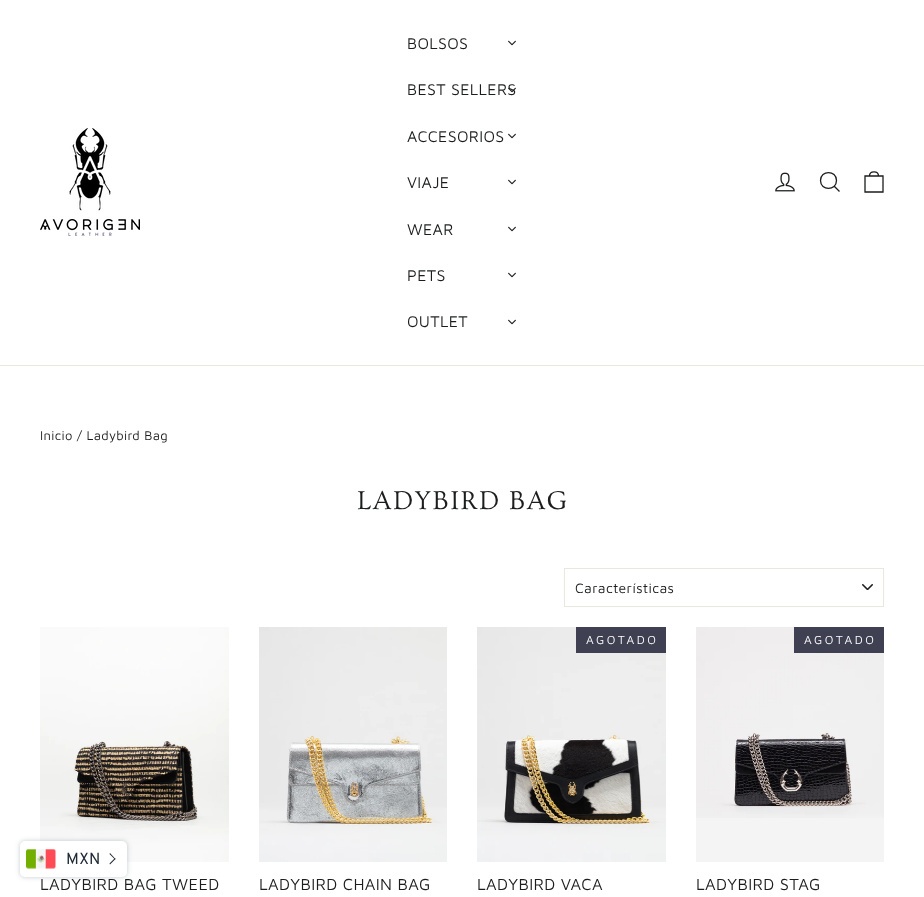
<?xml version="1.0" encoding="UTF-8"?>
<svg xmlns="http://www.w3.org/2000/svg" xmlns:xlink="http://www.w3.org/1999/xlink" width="924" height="897">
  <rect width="100%" height="100%" fill="#ffffff" />
  <rect y="365" width="924" height="1" fill="#e8e8e1" />
  <image x="40" y="128" width="100" height="108" xlink:href="image1.png" />
  <image x="508" y="40" width="8" height="6" xlink:href="image2.png" />
  <image x="508" y="133" width="8" height="6" xlink:href="image2.png" />
  <image x="508" y="179" width="8" height="6" xlink:href="image2.png" />
  <image x="508" y="226" width="8" height="6" xlink:href="image2.png" />
  <image x="508" y="272" width="8" height="6" xlink:href="image2.png" />
  <image x="508" y="319" width="8" height="6" xlink:href="image2.png" />
  <image x="775" y="172" width="20" height="20" xlink:href="image4.png" />
  <path d="M 836.5 180.5 c 0 10.5 -16 10.5 -16 0 c 0 -10.5 16 -10.5 16 0 z m 3 11 l -5 -5" fill="none" stroke="#1c1d1d" stroke-width="1.3" />
  <path d="M 865 176 h 18 v 16 h -18 z m 4.5 0 c 0 -5.5 9 -5.5 9 0" fill="none" stroke="#1c1d1d" stroke-width="1.3" />
  <image x="862" y="584" width="11" height="6" xlink:href="image5.png" />
  <rect x="564.5" y="568.5" width="319" height="38" fill="none" stroke="#e8e8e1" />
  <image x="40" y="627" width="189" height="235" xlink:href="image6.png" />
  <image x="259" y="627" width="188" height="235" xlink:href="image7.png" />
  <image x="477" y="627" width="189" height="235" xlink:href="image8.png" />
  <rect x="576" y="627" width="90" height="26" fill="#3f4153" />
  <image x="696" y="627" width="188" height="191" xlink:href="image9.png" />
  <rect x="794" y="627" width="90" height="26" fill="#3f4153" />
  <rect x="696" y="818" width="188" height="44" fill="#f4f4f4" />
  <rect x="20" y="841" width="107" height="36" rx="5" fill="#212b36" fill-opacity="0.25" filter="blur(2.5px)" />
  <rect x="20" y="841" width="107" height="36" rx="5" fill="#ffffff" />
  <image x="26" y="849" width="30" height="20" xlink:href="image10.png" />
  <path d="M 109.5 854 l 0.5 -1 l 5.5 6 l -0.5 0.5 z" fill="#212b36" />
  <path d="M 109.5 863.5 l 5.5 -5.5 l 0.5 1 l -5.5 5.5 z" fill="#212b36" />
  <text x="407" y="49" style="font-family: Maven Pro; font-size: 16px; letter-spacing: 0.35px; fill: #1c1d1d">BOLSOS</text>
  <text x="407" y="95" style="font-family: Maven Pro; font-size: 16px; letter-spacing: 0.35px; fill: #1c1d1d">BEST SELLERS</text>
  <image x="508" y="87" width="8" height="6" xlink:href="image3.png" />
  <text x="407" y="142" style="font-family: Maven Pro; font-size: 16px; letter-spacing: 0.35px; fill: #1c1d1d">ACCESORIOS</text>
  <text x="407" y="188" style="font-family: Maven Pro; font-size: 16px; letter-spacing: 0.35px; fill: #1c1d1d">VIAJE</text>
  <text x="407" y="235" style="font-family: Maven Pro; font-size: 16px; letter-spacing: 0.35px; fill: #1c1d1d">WEAR</text>
  <text x="407" y="281" style="font-family: Maven Pro; font-size: 16px; letter-spacing: 0.35px; fill: #1c1d1d">PETS</text>
  <text x="407" y="327" style="font-family: Maven Pro; font-size: 16px; letter-spacing: 0.35px; fill: #1c1d1d">OUTLET</text>
  <text x="40" y="440" style="font-family: Maven Pro; font-size: 13px; letter-spacing: 0.35px; fill: #1c1d1d">Inicio / Ladybird Bag</text>
  <text x="357" y="509" style="font-family: Ovo; font-size: 27px; letter-spacing: 1.4px; fill: #1c1d1d">LADYBIRD BAG</text>
  <text x="575" y="593" style="font-family: Maven Pro; font-size: 14px; letter-spacing: 0.35px; fill: #1c1d1d">Características</text>
  <text x="40" y="890" style="font-family: Maven Pro; font-size: 16.5px; letter-spacing: 0.35px; fill: #1c1d1d">LADYBIRD BAG TWEED</text>
  <text x="259" y="890" style="font-family: Maven Pro; font-size: 16.5px; letter-spacing: 0.35px; fill: #1c1d1d">LADYBIRD CHAIN BAG</text>
  <text x="586" y="644" style="font-family: Maven Pro; font-size: 12px; letter-spacing: 2.5px; fill: #ffffff">AGOTADO</text>
  <text x="477" y="890" style="font-family: Maven Pro; font-size: 16.5px; letter-spacing: 0.35px; fill: #1c1d1d">LADYBIRD VACA</text>
  <text x="804" y="644" style="font-family: Maven Pro; font-size: 12px; letter-spacing: 2.5px; fill: #ffffff">AGOTADO</text>
  <text x="696" y="890" style="font-family: Maven Pro; font-size: 16.5px; letter-spacing: 0.35px; fill: #1c1d1d">LADYBIRD STAG</text>
  <text x="66" y="864" style="font-family: Overpass; font-size: 16px; letter-spacing: 0.35px; fill: #212b36">MXN</text>
</svg>
